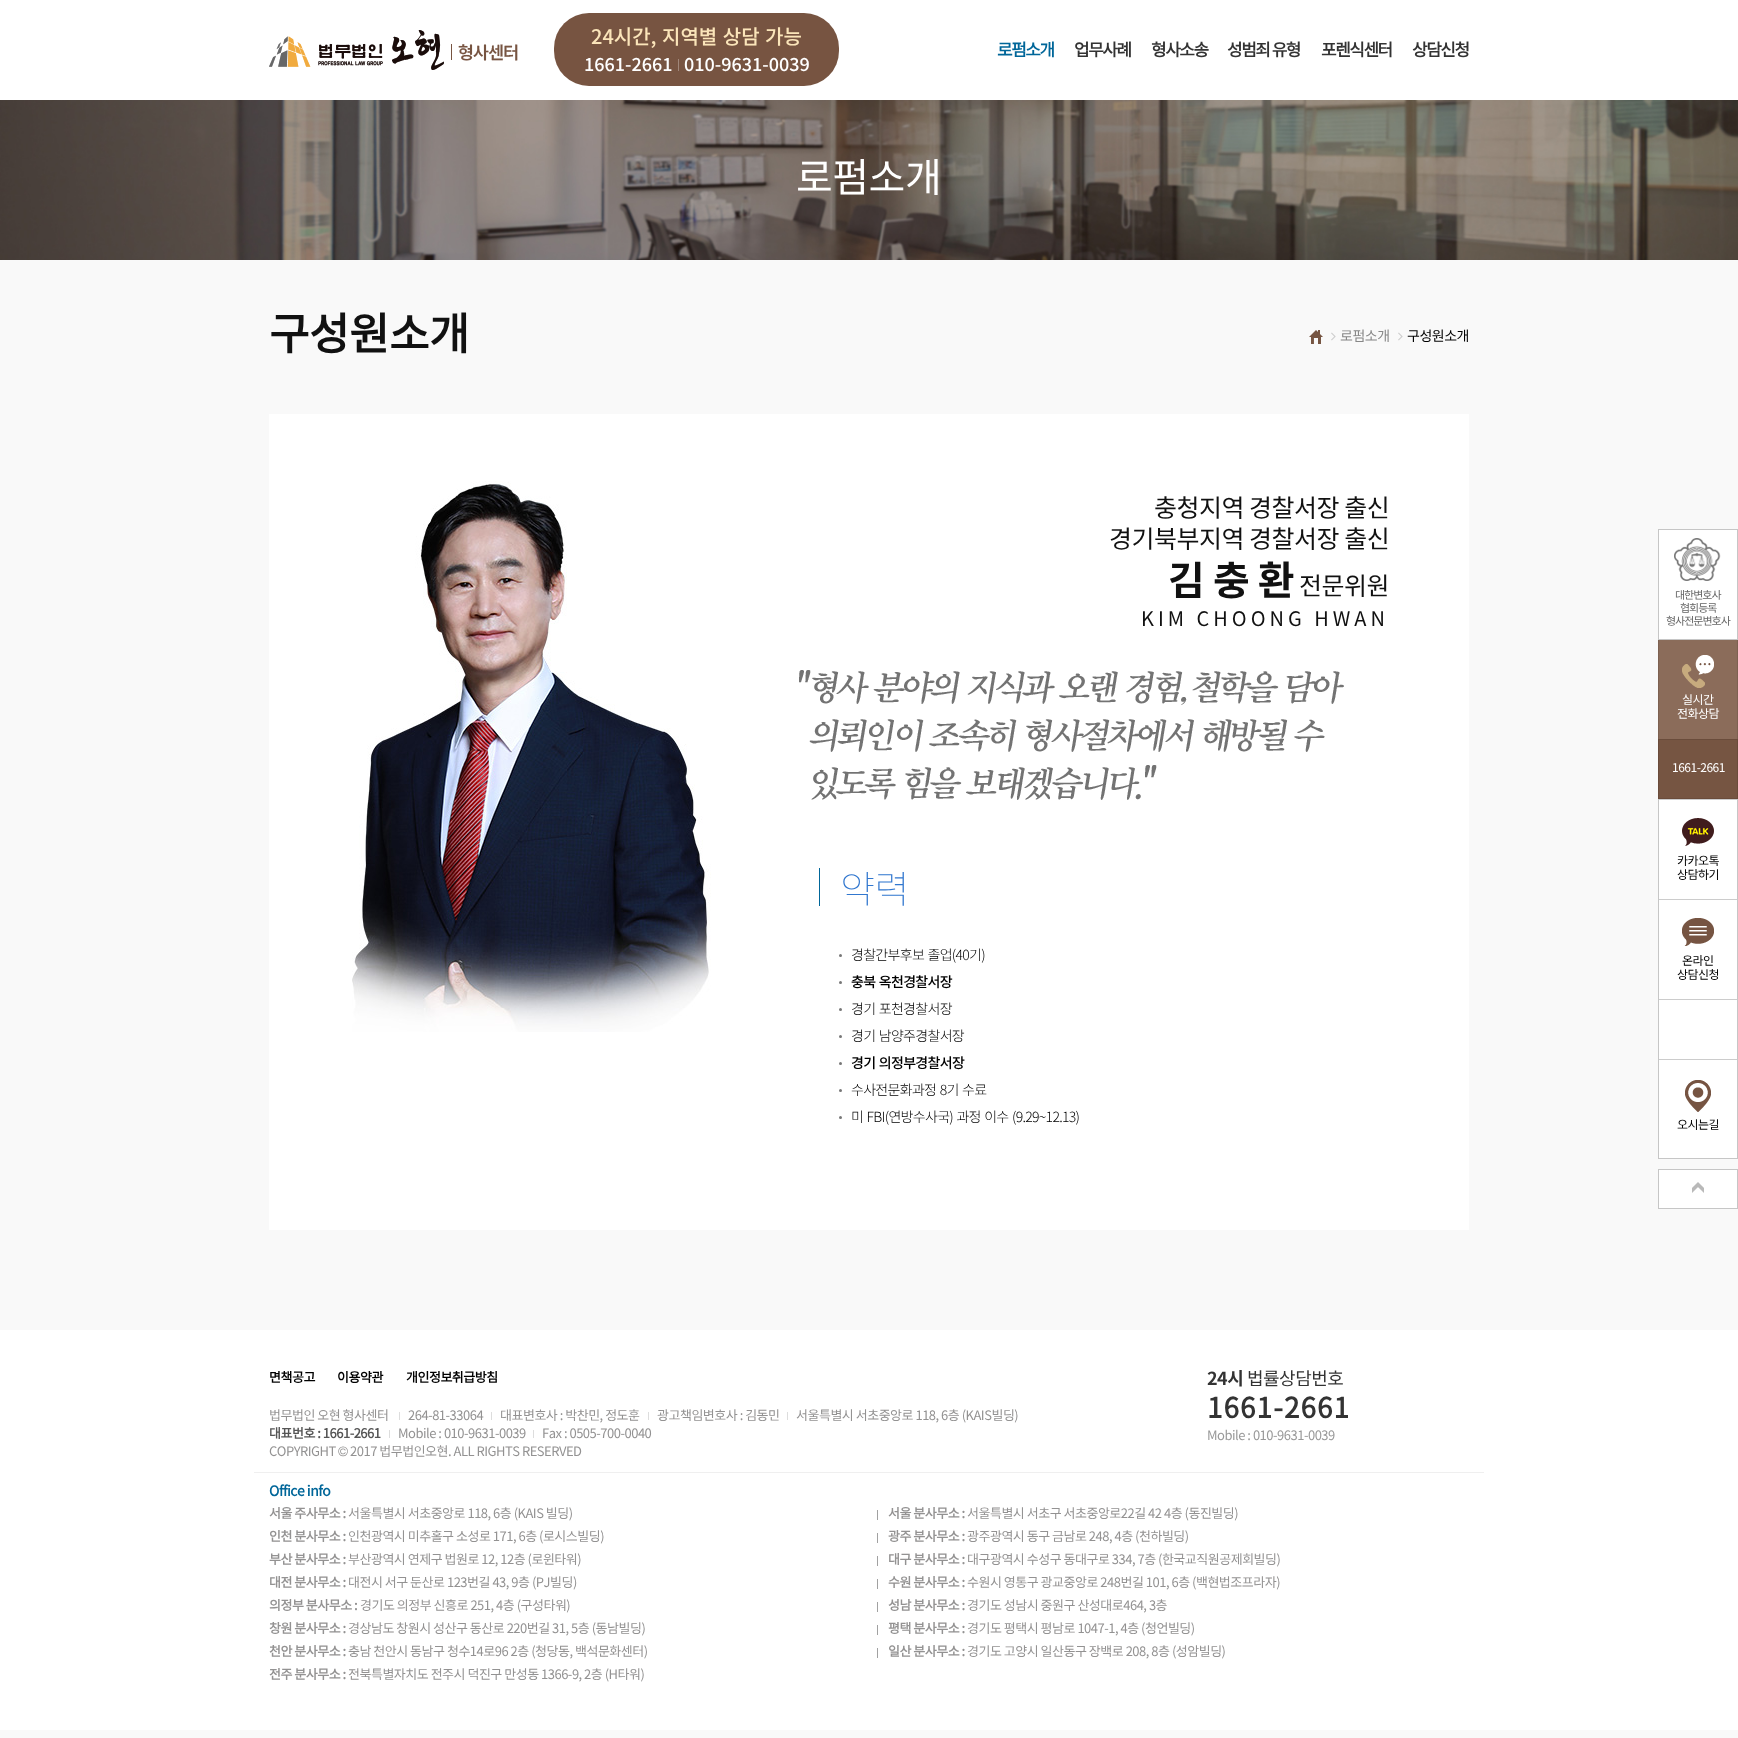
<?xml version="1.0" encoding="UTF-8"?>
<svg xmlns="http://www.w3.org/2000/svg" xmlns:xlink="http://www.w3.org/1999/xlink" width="1738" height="1738">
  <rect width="100%" height="100%" fill="#f9f9f9" />
  <rect width="1738" height="100" fill="#ffffff" />
  <image x="269" y="30" width="249" height="40" xlink:href="image1.png" />
  <rect x="554" y="13" width="285" height="73" rx="35" fill="#775441" />
  <rect x="678" y="59" width="1" height="12" fill="#a0877a" />
  <image x="0" y="100" width="1738" height="160" xlink:href="image2.png" />
  <image x="1309" y="330" width="14" height="14" xlink:href="image3.png" />
  <image x="1331" y="332" width="5" height="9" xlink:href="image4.png" />
  <image x="1398" y="332" width="5" height="9" xlink:href="image4.png" />
  <rect x="269" y="414" width="1200" height="816" fill="#ffffff" />
  <image x="799" y="670" width="545" height="130" xlink:href="image5.png" />
  <image x="352" y="481" width="359" height="551" xlink:href="image6.png" />
  <rect x="819" y="868" width="1" height="38" fill="#006699" />
  <circle cx="840.5" cy="955.5" r="1.5" fill="#777777" />
  <circle cx="840.5" cy="982.5" r="1.5" fill="#777777" />
  <circle cx="840.5" cy="1009.5" r="1.5" fill="#777777" />
  <circle cx="840.5" cy="1036.5" r="1.5" fill="#777777" />
  <circle cx="840.5" cy="1063.5" r="1.5" fill="#777777" />
  <circle cx="840.5" cy="1090.5" r="1.5" fill="#777777" />
  <circle cx="840.5" cy="1117.5" r="1.5" fill="#777777" />
  <image x="1658" y="529" width="80" height="680" xlink:href="image7.png" />
  <rect y="1330" width="1738" height="400" fill="#ffffff" />
  <rect x="399" y="1412" width="1" height="8" fill="#dddddd" />
  <rect x="491" y="1412" width="1" height="8" fill="#dddddd" />
  <rect x="648" y="1412" width="1" height="8" fill="#dddddd" />
  <rect x="787" y="1412" width="1" height="8" fill="#dddddd" />
  <rect x="389" y="1430" width="1" height="8" fill="#dddddd" />
  <rect x="533" y="1430" width="1" height="8" fill="#dddddd" />
  <rect x="254" y="1472" width="1230" height="1" fill="#efefef" />
  <rect x="877" y="1510" width="1" height="10" fill="#a1a1a1" />
  <rect x="877" y="1533" width="1" height="10" fill="#a1a1a1" />
  <rect x="877" y="1556" width="1" height="10" fill="#a1a1a1" />
  <rect x="877" y="1579" width="1" height="10" fill="#a1a1a1" />
  <rect x="877" y="1602" width="1" height="10" fill="#a1a1a1" />
  <rect x="877" y="1625" width="1" height="10" fill="#a1a1a1" />
  <rect x="877" y="1648" width="1" height="10" fill="#a1a1a1" />
  <text x="591" y="44" word-spacing="1" style="font-family: Noto Sans KR; font-size: 20px; font-weight: 500; fill: #fbe5ba">24시간, 지역별 상담 가능</text>
  <text x="584" y="71" style="font-family: Noto Sans KR; font-size: 18px; font-weight: 500; fill: #ffffff">1661-2661</text>
  <text x="684" y="71" style="font-family: Noto Sans KR; font-size: 18px; font-weight: 500; fill: #ffffff">010-9631-0039</text>
  <text x="997" y="56" style="font-family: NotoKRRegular; font-size: 17px; font-weight: bold; letter-spacing: -1.5px; fill: #006699">로펌소개</text>
  <text x="1074" y="56" style="font-family: NotoKRRegular; font-size: 17px; font-weight: bold; letter-spacing: -1.5px; fill: #333333">업무사례</text>
  <text x="1151" y="56" style="font-family: NotoKRRegular; font-size: 17px; font-weight: bold; letter-spacing: -1.5px; fill: #333333">형사소송</text>
  <text x="1227" y="56" style="font-family: NotoKRRegular; font-size: 17px; font-weight: bold; letter-spacing: -1.5px; fill: #333333">성범죄 유형</text>
  <text x="1321" y="56" style="font-family: NotoKRRegular; font-size: 17px; font-weight: bold; letter-spacing: -1.5px; fill: #333333">포렌식센터</text>
  <text x="1412" y="56" style="font-family: NotoKRRegular; font-size: 17px; font-weight: bold; letter-spacing: -1.5px; fill: #333333">상담신청</text>
  <text x="796" y="192" style="font-family: NotoKRRegular; font-size: 40px; letter-spacing: -0.5px; fill: #ffffff">로펌소개</text>
  <text x="269" y="350" style="font-family: NotoKRRegular; font-size: 44px; font-weight: bold; letter-spacing: -0.5px; fill: #111111">구성원소개</text>
  <text x="1340" y="341" style="font-family: NotoKRRegular; font-size: 14px; letter-spacing: -0.5px; fill: #888888">로펌소개</text>
  <text x="1407" y="341" style="font-family: NotoKRRegular; font-size: 14px; letter-spacing: -0.5px; fill: #000000">구성원소개</text>
  <text x="1154" y="517" style="font-family: NotoKRRegular; font-size: 25px; letter-spacing: -0.5px; fill: #111111">충청지역 경찰서장 출신</text>
  <text x="1109" y="548" style="font-family: NotoKRRegular; font-size: 25px; letter-spacing: -0.5px; fill: #111111">경기북부지역 경찰서장 출신</text>
  <text x="1168" y="595" style="font-family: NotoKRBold; font-size: 40px; font-weight: bold; letter-spacing: -0.5px; fill: #111111">김 충 환</text>
  <text x="1299" y="595" style="font-family: NotoKRRegular; font-size: 25px; letter-spacing: -0.5px; fill: #111111">전문위원</text>
  <text x="1141" y="626" style="font-family: NotoKRRegular; font-size: 20px; letter-spacing: 4px; fill: #111111">KIM CHOONG HWAN</text>
  <text x="840" y="903" style="font-family: Noto Sans KR; font-size: 38px; font-weight: 100; letter-spacing: -0.5px; fill: #3177cf">약력</text>
  <text x="851" y="960" word-spacing="1" style="font-family: Noto Sans KR; font-size: 14px; font-weight: 300; letter-spacing: -0.7px; fill: #000000">경찰간부후보 졸업(40기)</text>
  <text x="851" y="987" word-spacing="1" style="font-family: Noto Sans KR; font-size: 14px; font-weight: 500; letter-spacing: -0.7px; fill: #000000">충북 옥천경찰서장</text>
  <text x="851" y="1014" word-spacing="1" style="font-family: Noto Sans KR; font-size: 14px; font-weight: 300; letter-spacing: -0.7px; fill: #000000">경기 포천경찰서장</text>
  <text x="851" y="1041" word-spacing="1" style="font-family: Noto Sans KR; font-size: 14px; font-weight: 300; letter-spacing: -0.7px; fill: #000000">경기 남양주경찰서장</text>
  <text x="851" y="1068" word-spacing="1" style="font-family: Noto Sans KR; font-size: 14px; font-weight: 500; letter-spacing: -0.7px; fill: #000000">경기 의정부경찰서장</text>
  <text x="851" y="1095" word-spacing="1" style="font-family: Noto Sans KR; font-size: 14px; font-weight: 300; letter-spacing: -0.7px; fill: #000000">수사전문화과정 8기 수료</text>
  <text x="851" y="1122" word-spacing="1" style="font-family: Noto Sans KR; font-size: 14px; font-weight: 300; letter-spacing: -0.7px; fill: #000000">미 FBI(연방수사국) 과정 이수 (9.29~12.13)</text>
  <text x="1675" y="599" style="font-family: NotoKRRegular; font-size: 11px; letter-spacing: -1px; fill: #666666">대한변호사</text>
  <text x="1680" y="612" style="font-family: NotoKRRegular; font-size: 11px; letter-spacing: -1px; fill: #666666">협회등록</text>
  <text x="1666" y="625" style="font-family: NotoKRRegular; font-size: 11px; letter-spacing: -1px; fill: #666666">형사전문변호사</text>
  <text x="1682" y="704" style="font-family: NotoKRRegular; font-size: 12px; letter-spacing: -0.5px; fill: #ffffff">실시간</text>
  <text x="1677" y="718" style="font-family: NotoKRRegular; font-size: 12px; letter-spacing: -0.5px; fill: #ffffff">전화상담</text>
  <text x="1672" y="772" style="font-family: NotoKRRegular; font-size: 12px; letter-spacing: -0.5px; fill: #ffffff">1661-2661</text>
  <text x="1677" y="865" style="font-family: NotoKRRegular; font-size: 12px; letter-spacing: -0.5px; fill: #000000">카카오톡</text>
  <text x="1677" y="879" style="font-family: NotoKRRegular; font-size: 12px; letter-spacing: -0.5px; fill: #000000">상담하기</text>
  <text x="1682" y="965" style="font-family: NotoKRRegular; font-size: 12px; letter-spacing: -0.5px; fill: #000000">온라인</text>
  <text x="1677" y="979" style="font-family: NotoKRRegular; font-size: 12px; letter-spacing: -0.5px; fill: #000000">상담신청</text>
  <text x="1677" y="1129" style="font-family: NotoKRRegular; font-size: 12px; letter-spacing: -0.5px; fill: #000000">오시는길</text>
  <text x="269" y="1382" style="font-family: NotoKRRegular; font-size: 13px; font-weight: bold; letter-spacing: -0.5px; fill: #000000">면책공고</text>
  <text x="337" y="1382" style="font-family: NotoKRRegular; font-size: 13px; font-weight: bold; letter-spacing: -0.5px; fill: #000000">이용약관</text>
  <text x="406" y="1382" style="font-family: NotoKRRegular; font-size: 13px; font-weight: bold; letter-spacing: -0.5px; fill: #000000">개인정보취급방침</text>
  <text x="269" y="1420" style="font-family: NotoKRRegular; font-size: 13px; letter-spacing: -0.5px; fill: #939292">법무법인 오현 형사센터</text>
  <text x="408" y="1420" style="font-family: NotoKRRegular; font-size: 13px; letter-spacing: -0.5px; fill: #939292">264-81-33064</text>
  <text x="500" y="1420" style="font-family: NotoKRRegular; font-size: 13px; letter-spacing: -0.5px; fill: #939292">대표변호사 : 박찬민, 정도훈</text>
  <text x="657" y="1420" style="font-family: NotoKRRegular; font-size: 13px; letter-spacing: -0.5px; fill: #939292">광고책임변호사 : 김동민</text>
  <text x="796" y="1420" style="font-family: NotoKRRegular; font-size: 13px; letter-spacing: -0.5px; fill: #939292">서울특별시 서초중앙로 118, 6층 (KAIS빌딩)</text>
  <text x="269" y="1438" style="font-family: NotoKRRegular; font-size: 13px; font-weight: bold; letter-spacing: -0.5px; fill: #555555">대표번호 : 1661-2661</text>
  <text x="398" y="1438" style="font-family: NotoKRRegular; font-size: 13px; letter-spacing: -0.5px; fill: #939292">Mobile : 010-9631-0039</text>
  <text x="542" y="1438" style="font-family: NotoKRRegular; font-size: 13px; letter-spacing: -0.5px; fill: #939292">Fax : 0505-700-0040</text>
  <text x="269" y="1456" style="font-family: NotoKRRegular; font-size: 13px; letter-spacing: -0.5px; fill: #939292">COPYRIGHT</text>
  <text x="338" y="1456" style="font-family: Dotum; font-size: 13px; letter-spacing: -0.5px; fill: #939292">©</text>
  <text x="350" y="1456" style="font-family: NotoKRRegular; font-size: 13px; letter-spacing: -0.5px; fill: #939292">2017 법무법인오현. ALL RIGHTS RESERVED</text>
  <text x="1207" y="1385" style="font-family: NotoKRBold; font-size: 18px; font-weight: bold; letter-spacing: -0.5px; fill: #333333">24시</text>
  <text x="1247" y="1385" style="font-family: NotoKRRegular; font-size: 18px; letter-spacing: -0.5px; fill: #333333">법률상담번호</text>
  <text x="1207" y="1418" style="font-family: NotoKRRegular; font-size: 28px; font-weight: bold; letter-spacing: 1px; fill: #333333">1661-2661</text>
  <text x="1207" y="1440" style="font-family: NotoKRRegular; font-size: 13px; letter-spacing: -0.5px; fill: #999999">Mobile : 010-9631-0039</text>
  <text x="269" y="1496" style="font-family: NotoKRRegular; font-size: 14px; font-weight: bold; letter-spacing: -0.5px; fill: #006699">Office info</text>
  <text x="269" y="1518" style="font-family: NotoKRRegular; font-size: 13px; font-weight: bold; letter-spacing: -0.5px; fill: #939292">서울 주사무소 :</text>
  <text x="348" y="1518" style="font-family: NotoKRRegular; font-size: 13px; letter-spacing: -0.5px; fill: #939292">서울특별시 서초중앙로 118, 6층 (KAIS 빌딩)</text>
  <text x="888" y="1518" style="font-family: NotoKRRegular; font-size: 13px; font-weight: bold; letter-spacing: -0.5px; fill: #939292">서울 분사무소 :</text>
  <text x="967" y="1518" style="font-family: NotoKRRegular; font-size: 13px; letter-spacing: -0.5px; fill: #939292">서울특별시 서초구 서초중앙로22길 42 4층 (동진빌딩)</text>
  <text x="269" y="1541" style="font-family: NotoKRRegular; font-size: 13px; font-weight: bold; letter-spacing: -0.5px; fill: #939292">인천 분사무소 :</text>
  <text x="348" y="1541" style="font-family: NotoKRRegular; font-size: 13px; letter-spacing: -0.5px; fill: #939292">인천광역시 미추홀구 소성로 171, 6층 (로시스빌딩)</text>
  <text x="888" y="1541" style="font-family: NotoKRRegular; font-size: 13px; font-weight: bold; letter-spacing: -0.5px; fill: #939292">광주 분사무소 :</text>
  <text x="967" y="1541" style="font-family: NotoKRRegular; font-size: 13px; letter-spacing: -0.5px; fill: #939292">광주광역시 동구 금남로 248, 4층 (천하빌딩)</text>
  <text x="269" y="1564" style="font-family: NotoKRRegular; font-size: 13px; font-weight: bold; letter-spacing: -0.5px; fill: #939292">부산 분사무소 :</text>
  <text x="348" y="1564" style="font-family: NotoKRRegular; font-size: 13px; letter-spacing: -0.5px; fill: #939292">부산광역시 연제구 법원로 12, 12층 (로윈타워)</text>
  <text x="888" y="1564" style="font-family: NotoKRRegular; font-size: 13px; font-weight: bold; letter-spacing: -0.5px; fill: #939292">대구 분사무소 :</text>
  <text x="967" y="1564" style="font-family: NotoKRRegular; font-size: 13px; letter-spacing: -0.5px; fill: #939292">대구광역시 수성구 동대구로 334, 7층 (한국교직원공제회빌딩)</text>
  <text x="269" y="1587" style="font-family: NotoKRRegular; font-size: 13px; font-weight: bold; letter-spacing: -0.5px; fill: #939292">대전 분사무소 :</text>
  <text x="348" y="1587" style="font-family: NotoKRRegular; font-size: 13px; letter-spacing: -0.5px; fill: #939292">대전시 서구 둔산로 123번길 43, 9층 (PJ빌딩)</text>
  <text x="888" y="1587" style="font-family: NotoKRRegular; font-size: 13px; font-weight: bold; letter-spacing: -0.5px; fill: #939292">수원 분사무소 :</text>
  <text x="967" y="1587" style="font-family: NotoKRRegular; font-size: 13px; letter-spacing: -0.5px; fill: #939292">수원시 영통구 광교중앙로 248번길 101, 6층 (백현법조프라자)</text>
  <text x="269" y="1610" style="font-family: NotoKRRegular; font-size: 13px; font-weight: bold; letter-spacing: -0.5px; fill: #939292">의정부 분사무소 :</text>
  <text x="360" y="1610" style="font-family: NotoKRRegular; font-size: 13px; letter-spacing: -0.5px; fill: #939292">경기도 의정부 신흥로 251, 4층 (구성타워)</text>
  <text x="888" y="1610" style="font-family: NotoKRRegular; font-size: 13px; font-weight: bold; letter-spacing: -0.5px; fill: #939292">성남 분사무소 :</text>
  <text x="967" y="1610" style="font-family: NotoKRRegular; font-size: 13px; letter-spacing: -0.5px; fill: #939292">경기도 성남시 중원구 산성대로464, 3층</text>
  <text x="269" y="1633" style="font-family: NotoKRRegular; font-size: 13px; font-weight: bold; letter-spacing: -0.5px; fill: #939292">창원 분사무소 :</text>
  <text x="348" y="1633" style="font-family: NotoKRRegular; font-size: 13px; letter-spacing: -0.5px; fill: #939292">경상남도 창원시 성산구 동산로 220번길 31, 5층 (동남빌딩)</text>
  <text x="888" y="1633" style="font-family: NotoKRRegular; font-size: 13px; font-weight: bold; letter-spacing: -0.5px; fill: #939292">평택 분사무소 :</text>
  <text x="967" y="1633" style="font-family: NotoKRRegular; font-size: 13px; letter-spacing: -0.5px; fill: #939292">경기도 평택시 평남로 1047-1, 4층 (청언빌딩)</text>
  <text x="269" y="1656" style="font-family: NotoKRRegular; font-size: 13px; font-weight: bold; letter-spacing: -0.5px; fill: #939292">천안 분사무소 :</text>
  <text x="348" y="1656" style="font-family: NotoKRRegular; font-size: 13px; letter-spacing: -0.5px; fill: #939292">충남 천안시 동남구 청수14로96 2층 (청당동, 백석문화센터)</text>
  <text x="888" y="1656" style="font-family: NotoKRRegular; font-size: 13px; font-weight: bold; letter-spacing: -0.5px; fill: #939292">일산 분사무소 :</text>
  <text x="967" y="1656" style="font-family: NotoKRRegular; font-size: 13px; letter-spacing: -0.5px; fill: #939292">경기도 고양시 일산동구 장백로 208, 8층 (성암빌딩)</text>
  <text x="269" y="1679" style="font-family: NotoKRRegular; font-size: 13px; font-weight: bold; letter-spacing: -0.5px; fill: #939292">전주 분사무소 :</text>
  <text x="348" y="1679" style="font-family: NotoKRRegular; font-size: 13px; letter-spacing: -0.5px; fill: #939292">전북특별자치도 전주시 덕진구 만성동 1366-9, 2층 (H타워)</text>
</svg>
